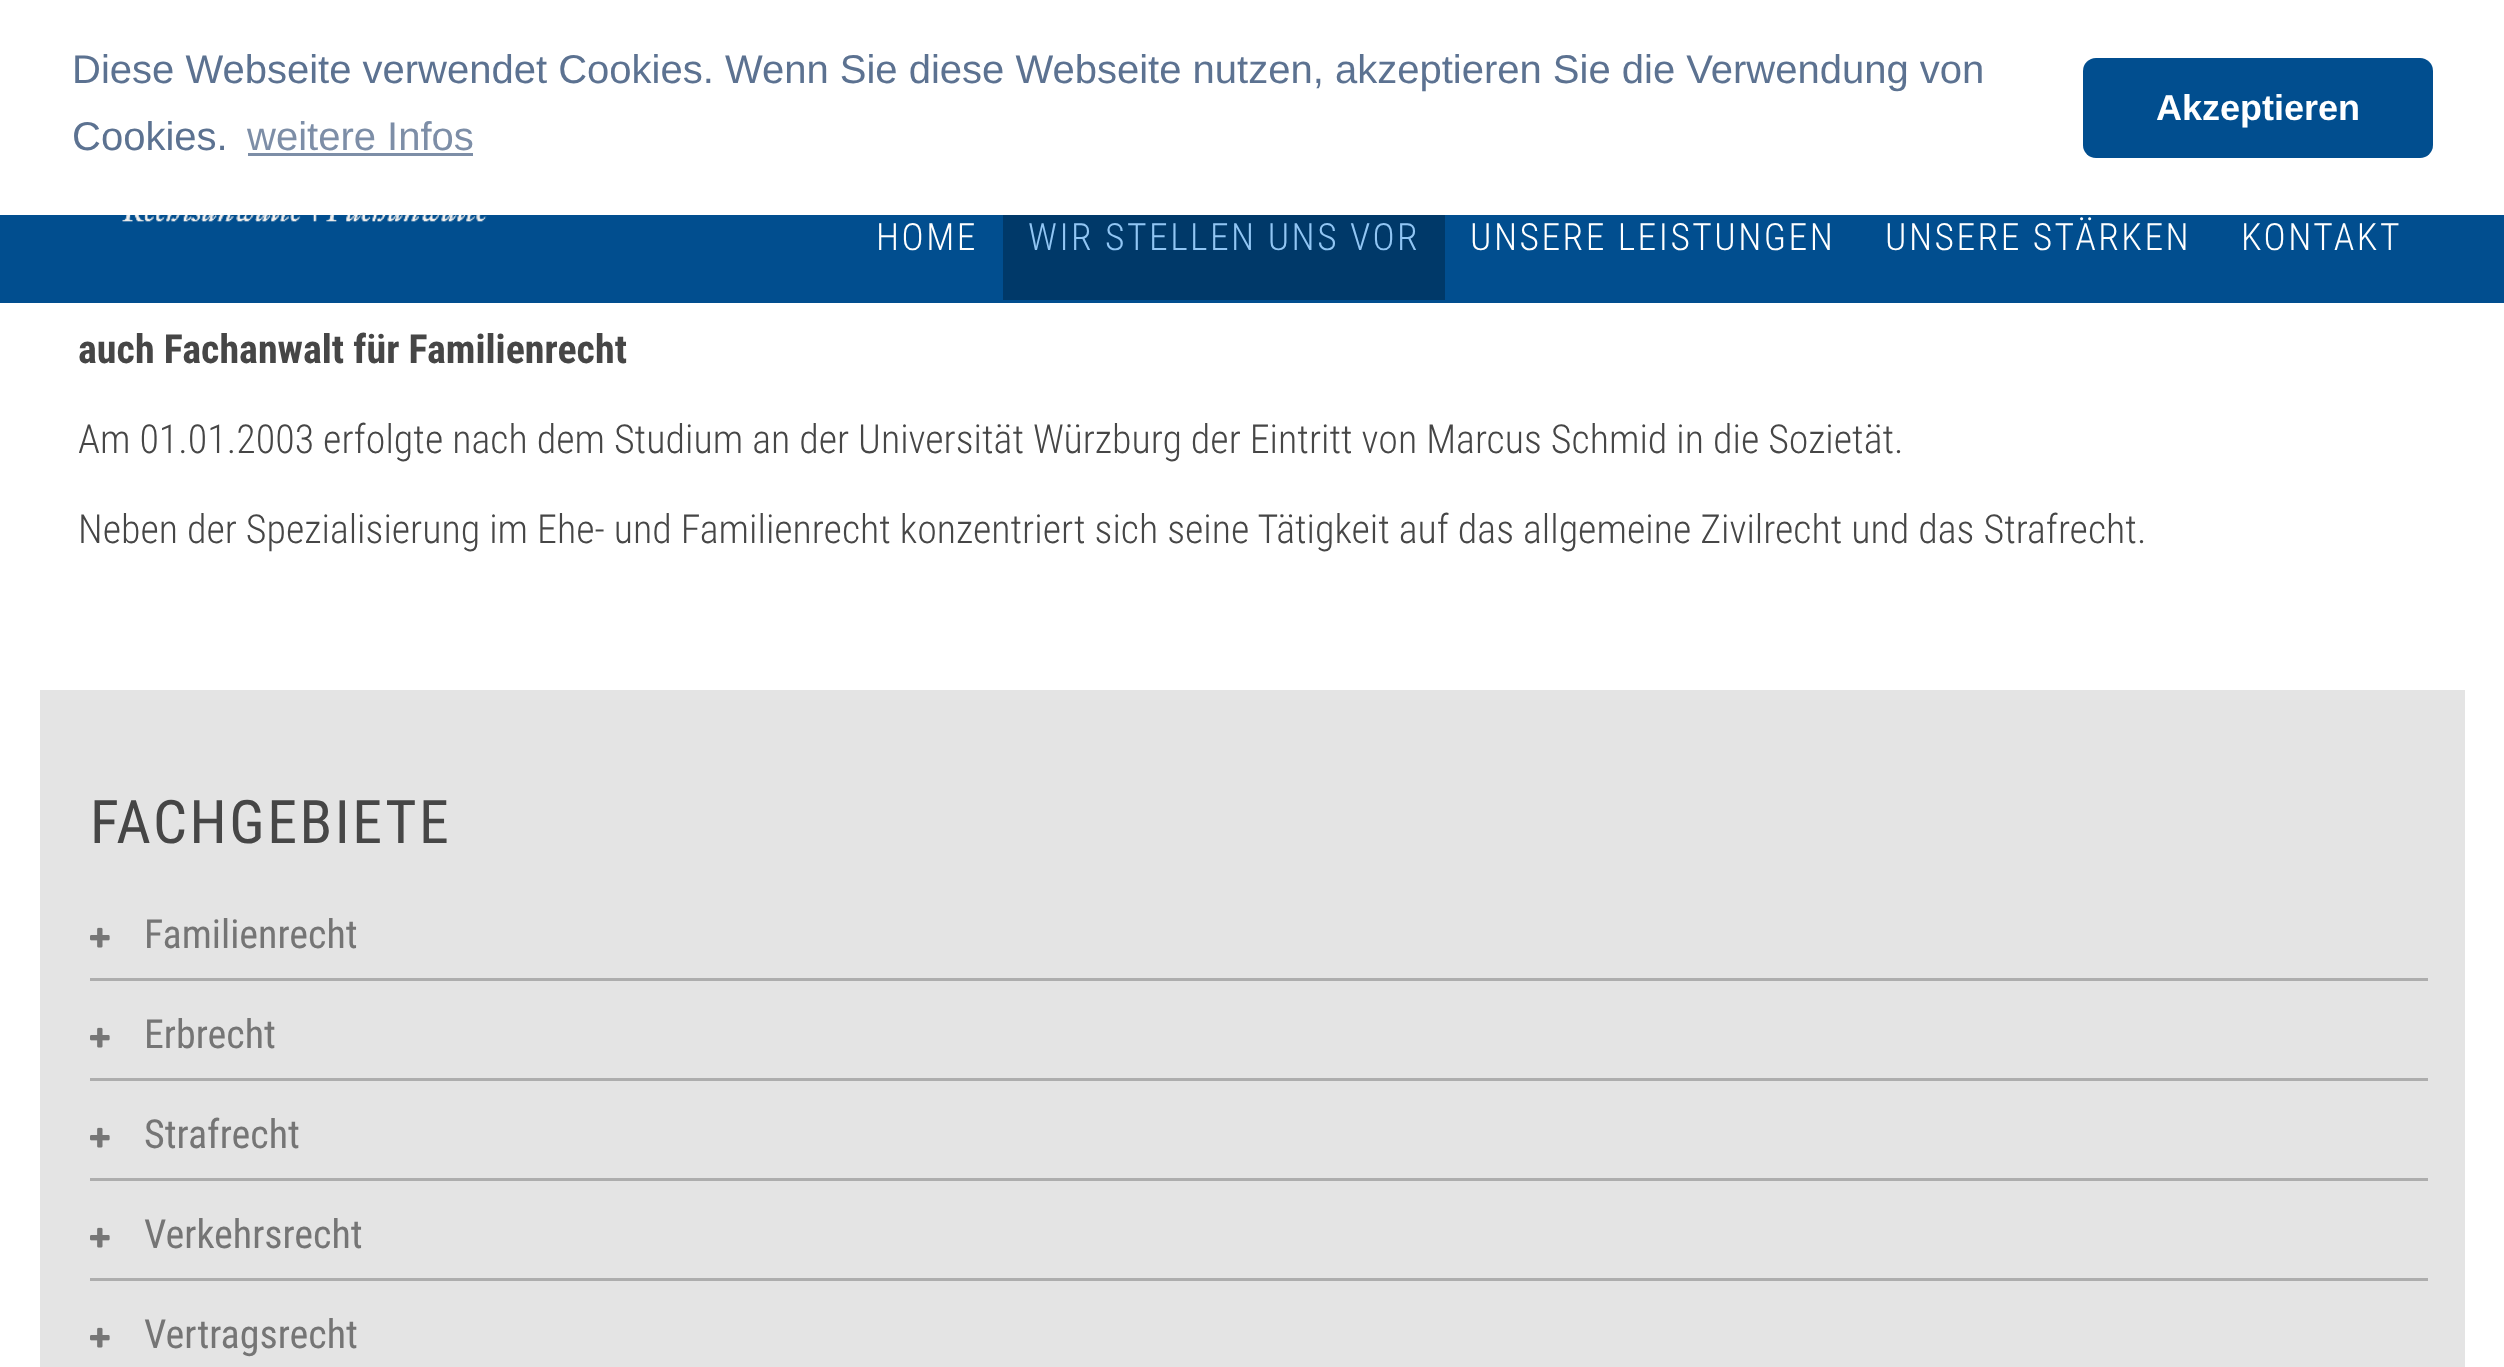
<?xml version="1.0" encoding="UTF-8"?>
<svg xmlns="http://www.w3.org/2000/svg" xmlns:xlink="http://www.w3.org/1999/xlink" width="2504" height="1367">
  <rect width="100%" height="100%" fill="#ffffff" />
  <rect x="248" y="153" width="225" height="3" fill="#7d8ea7" />
  <rect x="2083" y="58" width="350" height="100" rx="13" fill="#014e8f" />
  <rect y="215" width="2504" height="88" fill="#014e8f" />
  <image x="122" y="215" width="365" height="7" xlink:href="image1.png" />
  <rect x="1003" y="215" width="442" height="85" fill="#003969" />
  <rect x="40" y="690" width="2425" height="677" fill="#e4e4e4" />
  <rect x="90" y="978" width="2338" height="3" fill="#adadad" />
  <image x="90" y="927" width="20" height="21" xlink:href="image2.png" />
  <rect x="90" y="1078" width="2338" height="3" fill="#adadad" />
  <image x="90" y="1027" width="20" height="21" xlink:href="image2.png" />
  <rect x="90" y="1178" width="2338" height="3" fill="#adadad" />
  <image x="90" y="1127" width="20" height="21" xlink:href="image2.png" />
  <rect x="90" y="1278" width="2338" height="3" fill="#adadad" />
  <image x="90" y="1227" width="20" height="21" xlink:href="image2.png" />
  <image x="90" y="1327" width="20" height="21" xlink:href="image2.png" />
  <text x="72" y="83" style="font-family: Liberation Sans; font-size: 40px; fill: #5c7291">Diese Webseite verwendet Cookies. Wenn Sie diese Webseite nutzen, akzeptieren Sie die Verwendung von</text>
  <text x="72" y="150" style="font-family: Liberation Sans; font-size: 40px; fill: #5c7291">Cookies.</text>
  <text x="247" y="150" style="font-family: Liberation Sans; font-size: 40px; fill: #7d8ea7">weitere Infos</text>
  <text x="2156" y="120" style="font-family: Liberation Sans; font-size: 36px; font-weight: bold; fill: #ffffff">Akzeptieren</text>
  <text x="876" y="250" style="font-family: Roboto Condensed; font-size: 37.5px; font-weight: 300; letter-spacing: 2.5px; fill: #ffffff">HOME</text>
  <text x="1028" y="250" style="font-family: Roboto Condensed; font-size: 37.5px; font-weight: 300; letter-spacing: 2.5px; fill: #91c6f4">WIR STELLEN UNS VOR</text>
  <text x="1470" y="250" style="font-family: Roboto Condensed; font-size: 37.5px; font-weight: 300; letter-spacing: 2.5px; fill: #ffffff">UNSERE LEISTUNGEN</text>
  <text x="1885" y="250" style="font-family: Roboto Condensed; font-size: 37.5px; font-weight: 300; letter-spacing: 2.5px; fill: #ffffff">UNSERE STÄRKEN</text>
  <text x="2241" y="250" style="font-family: Roboto Condensed; font-size: 37.5px; font-weight: 300; letter-spacing: 2.5px; fill: #ffffff">KONTAKT</text>
  <text x="78" y="363" style="font-family: Roboto Condensed; font-size: 40px; font-weight: bold; fill: #464646">auch Fachanwalt für Familienrecht</text>
  <text x="78" y="453" style="font-family: Roboto Condensed; font-size: 40px; font-weight: 300; fill: #464646">Am 01.01.2003 erfolgte nach dem Studium an der Universität Würzburg der Eintritt von Marcus Schmid in die Sozietät.</text>
  <text x="78" y="543" style="font-family: Roboto Condensed; font-size: 40px; font-weight: 300; fill: #464646">Neben der Spezialisierung im Ehe- und Familienrecht konzentriert sich seine Tätigkeit auf das allgemeine Zivilrecht und das Strafrecht.</text>
  <text x="90" y="843" style="font-family: Roboto Condensed; font-size: 60px; letter-spacing: 2.5px; fill: #464646">FACHGEBIETE</text>
  <text x="144" y="948" style="font-family: Roboto Condensed; font-size: 40px; fill: #757575">Familienrecht</text>
  <text x="144" y="1048" style="font-family: Roboto Condensed; font-size: 40px; fill: #757575">Erbrecht</text>
  <text x="144" y="1148" style="font-family: Roboto Condensed; font-size: 40px; fill: #757575">Strafrecht</text>
  <text x="144" y="1248" style="font-family: Roboto Condensed; font-size: 40px; fill: #757575">Verkehrsrecht</text>
  <text x="144" y="1348" style="font-family: Roboto Condensed; font-size: 40px; fill: #757575">Vertragsrecht</text>
</svg>
